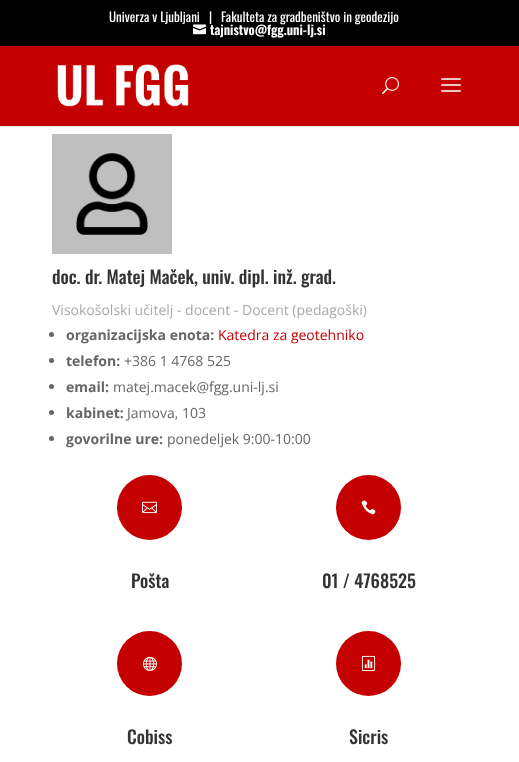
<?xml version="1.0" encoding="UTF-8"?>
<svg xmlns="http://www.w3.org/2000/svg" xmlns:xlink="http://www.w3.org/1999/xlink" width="519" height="762">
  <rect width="100%" height="100%" fill="#ffffff" />
  <rect width="519" height="46" fill="#000000" />
  <image x="193" y="24" width="13" height="11" xlink:href="image1.png" />
  <rect y="126" width="519" height="1" fill="#e6e6e6" />
  <rect y="46" width="519" height="80" fill="#c50000" />
  <image x="57" y="64" width="132" height="43" xlink:href="image2.png" />
  <image x="382" y="77" width="17" height="18" xlink:href="image3.png" />
  <image x="441" y="78" width="20" height="14" xlink:href="image4.png" />
  <image x="52" y="134" width="120" height="120" xlink:href="image5.png" />
  <circle cx="51.5" cy="334.5" r="2.5" fill="#666666" />
  <circle cx="51.5" cy="360.5" r="2.5" fill="#666666" />
  <circle cx="51.5" cy="386.5" r="2.5" fill="#666666" />
  <circle cx="51.5" cy="412.5" r="2.5" fill="#666666" />
  <circle cx="51.5" cy="438.5" r="2.5" fill="#666666" />
  <circle cx="149.5" cy="507.5" r="32.5" fill="#c50000" />
  <image x="142" y="501" width="15" height="13" xlink:href="image6.png" />
  <circle cx="368.5" cy="507.5" r="32.5" fill="#c50000" />
  <image x="361" y="500" width="15" height="15" xlink:href="image7.png" />
  <circle cx="149.5" cy="663.5" r="32.5" fill="#c50000" />
  <image x="142" y="656" width="15" height="15" xlink:href="image8.png" />
  <circle cx="368.5" cy="663.5" r="32.5" fill="#c50000" />
  <image x="361" y="655" width="15" height="16" xlink:href="image9.png" />
  <text x="109" y="22" style="font-family: Oswald; font-size: 13px; fill: #ffffff">Univerza v Ljubljani</text>
  <text x="209" y="22" style="font-family: Oswald; font-size: 13px; fill: #ffffff">|</text>
  <text x="221" y="22" style="font-family: Oswald; font-size: 13px; fill: #ffffff">Fakulteta za gradbeništvo in geodezijo</text>
  <text x="210" y="35" style="font-family: Oswald; font-size: 13px; font-weight: 600; fill: #ffffff">tajnistvo@fgg.uni-lj.si</text>
  <text x="52" y="284" style="font-family: Oswald; font-size: 18px; font-weight: 500; fill: #333333">doc. dr. Matej Maček, univ. dipl. inž. grad.</text>
  <text x="52" y="315" style="font-family: Open Sans; font-size: 14px; fill: #aaaaaa">Visokošolski učitelj - docent - Docent (pedagoški)</text>
  <text x="66" y="340" style="font-family: Open Sans; font-size: 14px; font-weight: bold; fill: #666666">organizacijska enota:</text>
  <text x="218" y="340" style="font-family: Open Sans; font-size: 14px; fill: #c50000">Katedra za geotehniko</text>
  <text x="66" y="366" style="font-family: Open Sans; font-size: 14px; font-weight: bold; fill: #666666">telefon:</text>
  <text x="124" y="366" style="font-family: Open Sans; font-size: 14px; fill: #666666">+386 1 4768 525</text>
  <text x="66" y="392" style="font-family: Open Sans; font-size: 14px; font-weight: bold; fill: #666666">email:</text>
  <text x="113" y="392" style="font-family: Open Sans; font-size: 14px; fill: #666666">matej.macek@fgg.uni-lj.si</text>
  <text x="66" y="418" style="font-family: Open Sans; font-size: 14px; font-weight: bold; fill: #666666">kabinet:</text>
  <text x="127" y="418" style="font-family: Open Sans; font-size: 14px; fill: #666666">Jamova, 103</text>
  <text x="66" y="444" style="font-family: Open Sans; font-size: 14px; font-weight: bold; fill: #666666">govorilne ure:</text>
  <text x="167" y="444" style="font-family: Open Sans; font-size: 14px; fill: #666666">ponedeljek 9:00-10:00</text>
  <text x="131" y="588" style="font-family: Oswald; font-size: 18px; font-weight: 500; fill: #333333">Pošta</text>
  <text x="322" y="588" style="font-family: Oswald; font-size: 18px; font-weight: 500; fill: #333333">01 / 4768525</text>
  <text x="127" y="744" style="font-family: Oswald; font-size: 18px; font-weight: 500; fill: #333333">Cobiss</text>
  <text x="349" y="744" style="font-family: Oswald; font-size: 18px; font-weight: 500; fill: #333333">Sicris</text>
</svg>
